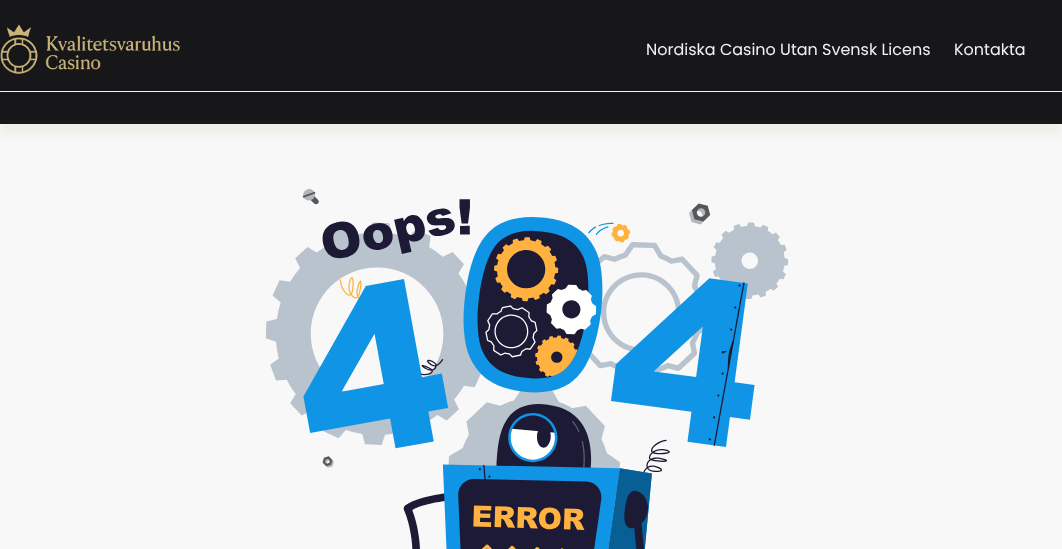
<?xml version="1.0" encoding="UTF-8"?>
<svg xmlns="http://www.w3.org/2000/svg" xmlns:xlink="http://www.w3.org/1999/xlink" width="1062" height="549">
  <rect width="100%" height="100%" fill="#f8f8f8" />
  <rect y="10" width="1062" height="124" fill="#7ea658" fill-opacity="0.1" filter="blur(5px)" />
  <rect width="1062" height="124" fill="#17171a" />
  <rect y="91" width="1062" height="1" fill="#f1f2f3" />
  <image x="0" y="24" width="180" height="50" xlink:href="image1.png" />
  <image x="265" y="189" width="524" height="360" xlink:href="image2.png" />
  <text x="646" y="55" style="font-family: Poppins; font-size: 16px; fill: #f1f2f3">Nordiska Casino Utan Svensk Licens</text>
  <text x="954" y="55" style="font-family: Poppins; font-size: 16px; fill: #f1f2f3">Kontakta</text>
</svg>
